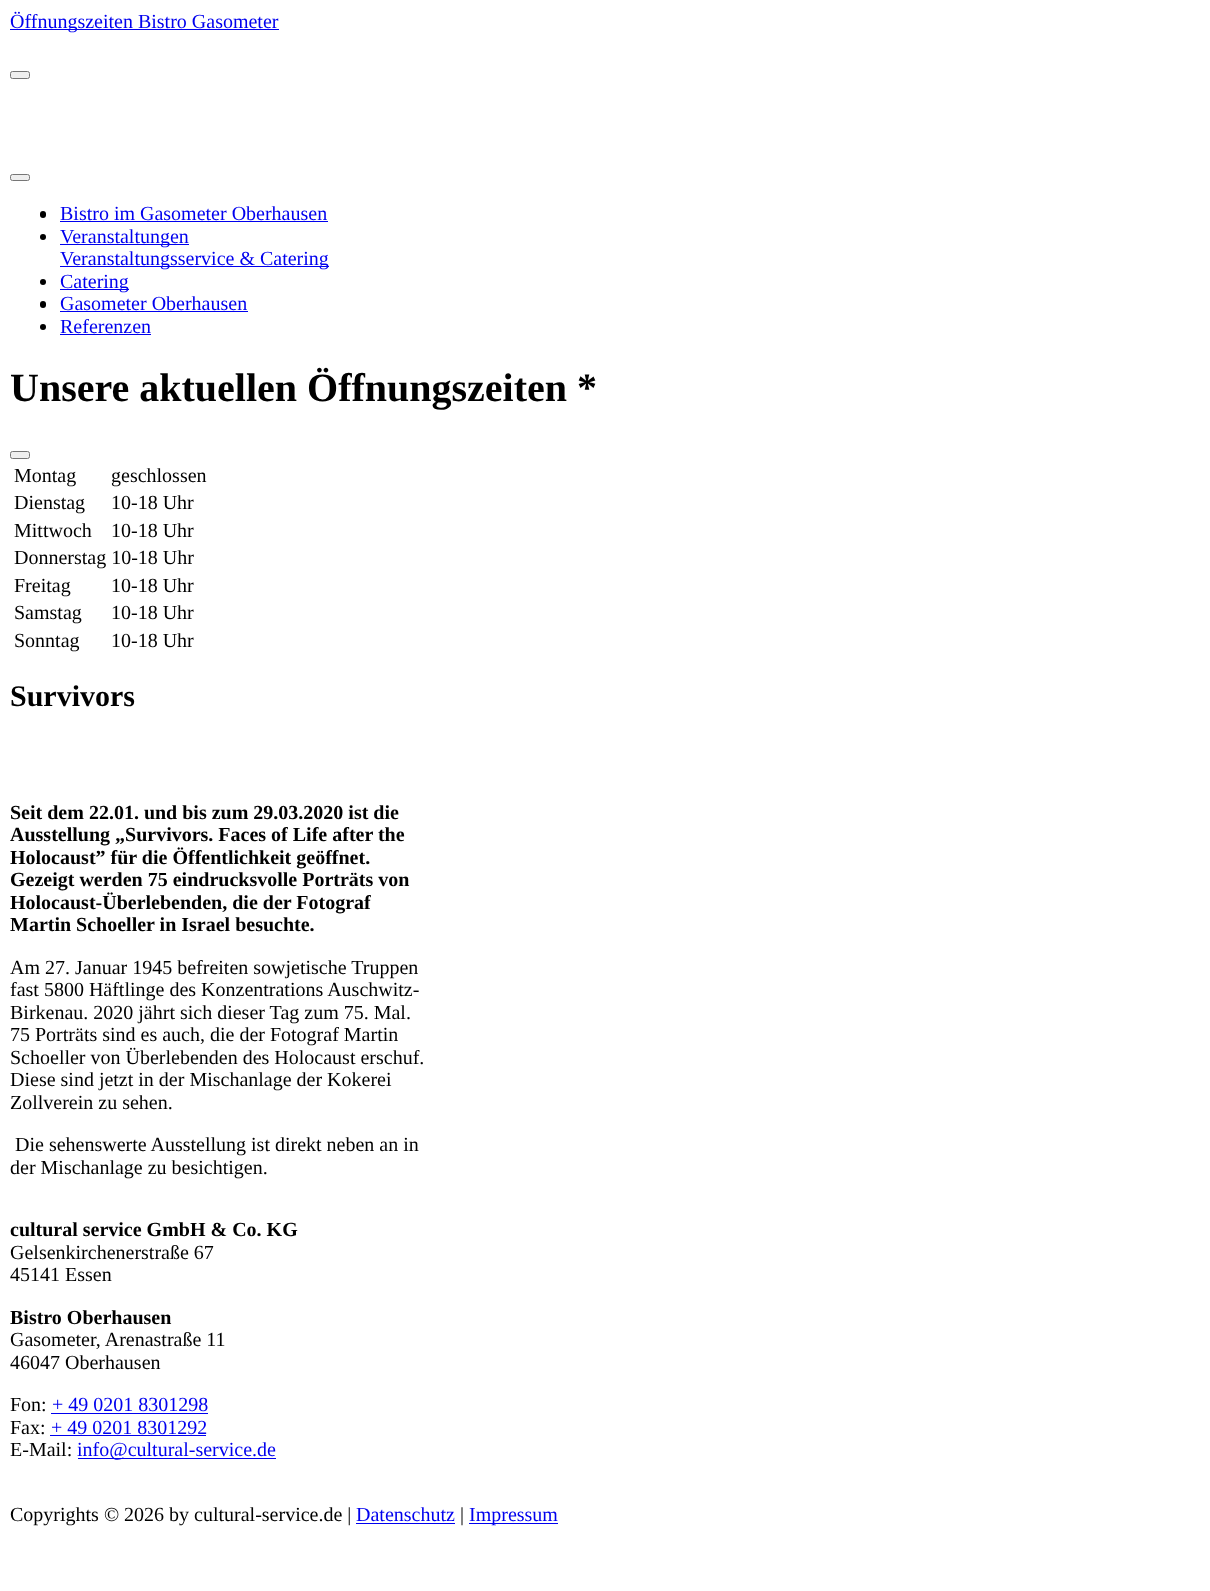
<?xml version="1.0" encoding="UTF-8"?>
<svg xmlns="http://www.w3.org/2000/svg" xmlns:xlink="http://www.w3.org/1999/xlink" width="1210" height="1591">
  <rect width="100%" height="100%" fill="#ffffff" />
  <rect x="10" y="29" width="269" height="1" fill="#0000ee" />
  <rect x="10.5" y="71.5" width="19" height="7" rx="2" fill="#efefef" stroke="#767676" />
  <rect x="10.5" y="174.5" width="19" height="6" rx="2" fill="#efefef" stroke="#767676" />
  <rect x="40" y="211" width="6" height="7" rx="3" fill="#000000" />
  <rect x="60" y="221" width="268" height="1" fill="#0000ee" />
  <circle cx="43" cy="237" r="3" fill="#000000" />
  <rect x="60" y="244" width="129" height="1" fill="#0000ee" />
  <rect x="60" y="266" width="269" height="1" fill="#0000ee" />
  <circle cx="43" cy="282" r="3" fill="#000000" />
  <rect x="60" y="289" width="69" height="1" fill="#0000ee" />
  <rect x="40" y="301" width="6" height="7" rx="3" fill="#000000" />
  <rect x="60" y="311" width="188" height="1" fill="#0000ee" />
  <circle cx="43" cy="327" r="3" fill="#000000" />
  <rect x="60" y="334" width="91" height="1" fill="#0000ee" />
  <rect x="10.5" y="451.5" width="19" height="7" rx="2" fill="#efefef" stroke="#767676" />
  <rect x="51" y="1413" width="157" height="1" fill="#0000ee" />
  <rect x="50" y="1435" width="156" height="1" fill="#0000ee" />
  <rect x="78" y="1458" width="198" height="1" fill="#0000ee" />
  <rect x="356" y="1523" width="99" height="1" fill="#0000ee" />
  <rect x="469" y="1523" width="89" height="1" fill="#0000ee" />
  <text x="10" y="28" style="font-family: Liberation Serif; font-size: 20px; fill: #0000ee">Öffnungszeiten Bistro Gasometer</text>
  <text x="60" y="220" style="font-family: Liberation Serif; font-size: 20px; fill: #0000ee">Bistro im Gasometer Oberhausen</text>
  <text x="60" y="243" style="font-family: Liberation Serif; font-size: 20px; fill: #0000ee">Veranstaltungen</text>
  <text x="60" y="265" style="font-family: Liberation Serif; font-size: 20px; fill: #0000ee">Veranstaltungsservice &amp; Catering</text>
  <text x="60" y="288" style="font-family: Liberation Serif; font-size: 20px; fill: #0000ee">Catering</text>
  <text x="60" y="310" style="font-family: Liberation Serif; font-size: 20px; fill: #0000ee">Gasometer Oberhausen</text>
  <text x="60" y="333" style="font-family: Liberation Serif; font-size: 20px; fill: #0000ee">Referenzen</text>
  <text x="10" y="401" style="font-family: Liberation Serif; font-size: 40px; font-weight: bold; fill: #000000">Unsere aktuellen Öffnungszeiten *</text>
  <text x="14" y="482" style="font-family: Liberation Serif; font-size: 20px; fill: #000000">Montag</text>
  <text x="111" y="482" style="font-family: Liberation Serif; font-size: 20px; fill: #000000">geschlossen</text>
  <text x="14" y="509" style="font-family: Liberation Serif; font-size: 20px; fill: #000000">Dienstag</text>
  <text x="111" y="509" style="font-family: Liberation Serif; font-size: 20px; fill: #000000">10-18 Uhr</text>
  <text x="14" y="537" style="font-family: Liberation Serif; font-size: 20px; fill: #000000">Mittwoch</text>
  <text x="111" y="537" style="font-family: Liberation Serif; font-size: 20px; fill: #000000">10-18 Uhr</text>
  <text x="14" y="564" style="font-family: Liberation Serif; font-size: 20px; fill: #000000">Donnerstag 10-18 Uhr</text>
  <text x="14" y="592" style="font-family: Liberation Serif; font-size: 20px; fill: #000000">Freitag</text>
  <text x="111" y="592" style="font-family: Liberation Serif; font-size: 20px; fill: #000000">10-18 Uhr</text>
  <text x="14" y="619" style="font-family: Liberation Serif; font-size: 20px; fill: #000000">Samstag</text>
  <text x="111" y="619" style="font-family: Liberation Serif; font-size: 20px; fill: #000000">10-18 Uhr</text>
  <text x="14" y="647" style="font-family: Liberation Serif; font-size: 20px; fill: #000000">Sonntag</text>
  <text x="111" y="647" style="font-family: Liberation Serif; font-size: 20px; fill: #000000">10-18 Uhr</text>
  <text x="10" y="706" style="font-family: Liberation Serif; font-size: 30px; font-weight: bold; fill: #000000">Survivors</text>
  <text x="10" y="819" style="font-family: Liberation Serif; font-size: 20px; font-weight: bold; fill: #000000">Seit dem 22.01. und bis zum 29.03.2020 ist die</text>
  <text x="10" y="841" style="font-family: Liberation Serif; font-size: 20px; font-weight: bold; fill: #000000">Ausstellung „Survivors. Faces of Life after the</text>
  <text x="10" y="864" style="font-family: Liberation Serif; font-size: 20px; font-weight: bold; fill: #000000">Holocaust” für die Öffentlichkeit geöffnet.</text>
  <text x="10" y="886" style="font-family: Liberation Serif; font-size: 20px; font-weight: bold; fill: #000000">Gezeigt werden 75 eindrucksvolle Porträts von</text>
  <text x="10" y="909" style="font-family: Liberation Serif; font-size: 20px; font-weight: bold; fill: #000000">Holocaust-Überlebenden, die der Fotograf</text>
  <text x="10" y="931" style="font-family: Liberation Serif; font-size: 20px; font-weight: bold; fill: #000000">Martin Schoeller in Israel besuchte.</text>
  <text x="10" y="974" style="font-family: Liberation Serif; font-size: 20px; fill: #000000">Am 27. Januar 1945 befreiten sowjetische Truppen</text>
  <text x="10" y="996" style="font-family: Liberation Serif; font-size: 20px; fill: #000000">fast 5800 Häftlinge des Konzentrations Auschwitz-</text>
  <text x="10" y="1019" style="font-family: Liberation Serif; font-size: 20px; fill: #000000">Birkenau. 2020 jährt sich dieser Tag zum 75. Mal.</text>
  <text x="10" y="1041" style="font-family: Liberation Serif; font-size: 20px; fill: #000000">75 Porträts sind es auch, die der Fotograf Martin</text>
  <text x="10" y="1064" style="font-family: Liberation Serif; font-size: 20px; fill: #000000">Schoeller von Überlebenden des Holocaust erschuf.</text>
  <text x="10" y="1086" style="font-family: Liberation Serif; font-size: 20px; fill: #000000">Diese sind jetzt in der Mischanlage der Kokerei</text>
  <text x="10" y="1109" style="font-family: Liberation Serif; font-size: 20px; fill: #000000">Zollverein zu sehen.</text>
  <text x="15" y="1151" style="font-family: Liberation Serif; font-size: 20px; fill: #000000">Die sehenswerte Ausstellung ist direkt neben an in</text>
  <text x="10" y="1174" style="font-family: Liberation Serif; font-size: 20px; fill: #000000">der Mischanlage zu besichtigen.</text>
  <text x="10" y="1236" style="font-family: Liberation Serif; font-size: 20px; font-weight: bold; fill: #000000">cultural service GmbH &amp; Co. KG</text>
  <text x="10" y="1259" style="font-family: Liberation Serif; font-size: 20px; fill: #000000">Gelsenkirchenerstraße 67</text>
  <text x="10" y="1281" style="font-family: Liberation Serif; font-size: 20px; fill: #000000">45141 Essen</text>
  <text x="10" y="1324" style="font-family: Liberation Serif; font-size: 20px; font-weight: bold; fill: #000000">Bistro Oberhausen</text>
  <text x="10" y="1346" style="font-family: Liberation Serif; font-size: 20px; fill: #000000">Gasometer, Arenastraße 11</text>
  <text x="10" y="1369" style="font-family: Liberation Serif; font-size: 20px; fill: #000000">46047 Oberhausen</text>
  <text x="10" y="1411" style="font-family: Liberation Serif; font-size: 20px; fill: #000000">Fon:</text>
  <text x="52" y="1411" style="font-family: Liberation Serif; font-size: 20px; fill: #0000ee">+ 49 0201 8301298</text>
  <text x="10" y="1434" style="font-family: Liberation Serif; font-size: 20px; fill: #000000">Fax:</text>
  <text x="51" y="1434" style="font-family: Liberation Serif; font-size: 20px; fill: #0000ee">+ 49 0201 8301292</text>
  <text x="10" y="1456" style="font-family: Liberation Serif; font-size: 20px; fill: #000000">E-Mail:</text>
  <text x="77" y="1456" style="font-family: Liberation Serif; font-size: 20px; fill: #0000ee">info@cultural-service.de</text>
  <text x="10" y="1521" style="font-family: Liberation Serif; font-size: 20px; fill: #000000">Copyrights © 2026 by cultural-service.de |</text>
  <text x="356" y="1521" style="font-family: Liberation Serif; font-size: 20px; fill: #0000ee">Datenschutz</text>
  <text x="460" y="1521" style="font-family: Liberation Serif; font-size: 20px; fill: #000000">|</text>
  <text x="469" y="1521" style="font-family: Liberation Serif; font-size: 20px; fill: #0000ee">Impressum</text>
</svg>
